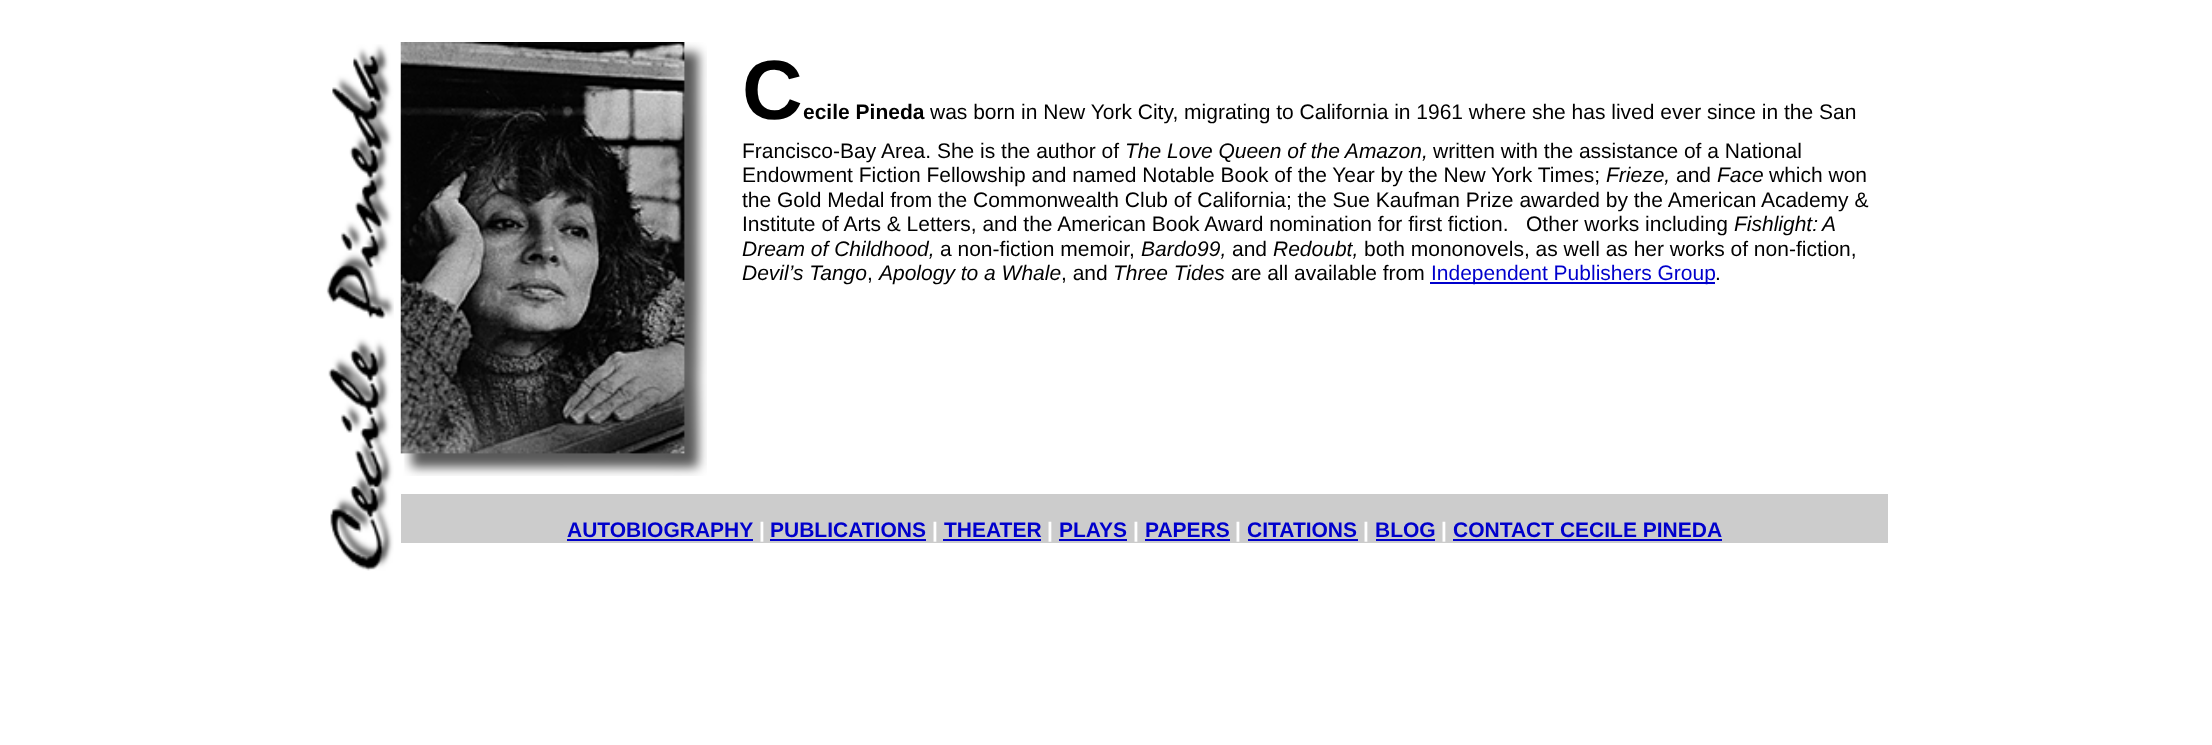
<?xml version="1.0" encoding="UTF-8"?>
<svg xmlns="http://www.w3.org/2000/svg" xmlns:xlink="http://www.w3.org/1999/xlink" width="2212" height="745">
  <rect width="100%" height="100%" fill="#ffffff" />
  <image x="326" y="44" width="68" height="527" xlink:href="image1.png" />
  <image x="400" y="42" width="307" height="434" xlink:href="image2.png" />
  <rect x="1430" y="282" width="285" height="2" fill="#0000cc" />
  <rect x="401" y="494" width="1487" height="49" fill="#cccccc" />
  <rect x="567" y="539" width="186" height="2" fill="#0000cc" />
  <rect x="770" y="539" width="156" height="2" fill="#0000cc" />
  <rect x="943" y="539" width="98" height="2" fill="#0000cc" />
  <rect x="1059" y="539" width="68" height="2" fill="#0000cc" />
  <rect x="1145" y="539" width="85" height="2" fill="#0000cc" />
  <rect x="1248" y="539" width="110" height="2" fill="#0000cc" />
  <rect x="1376" y="539" width="59" height="2" fill="#0000cc" />
  <rect x="1453" y="539" width="269" height="2" fill="#0000cc" />
  <text x="742" y="119" style="font-family: Liberation Sans; font-size: 84px; font-weight: bold; fill: #000000">C</text>
  <text x="803" y="119" style="font-family: Liberation Sans; font-size: 21px; font-weight: bold; fill: #000000">ecile Pineda</text>
  <text x="930" y="119" style="font-family: Liberation Sans; font-size: 21px; fill: #000000">was born in New York City, migrating to California in 1961 where she has lived ever since in the San</text>
  <text x="742" y="158" style="font-family: Liberation Sans; font-size: 21px; fill: #000000">Francisco-Bay Area. She is the author of</text>
  <text x="1125" y="158" style="font-family: Liberation Sans; font-size: 21px; font-style: italic; fill: #000000">The Love Queen of the Amazon,</text>
  <text x="1433" y="158" style="font-family: Liberation Sans; font-size: 21px; fill: #000000">written with the assistance of a National</text>
  <text x="742" y="182" style="font-family: Liberation Sans; font-size: 21px; fill: #000000">Endowment Fiction Fellowship and named Notable Book of the Year by the New York Times;</text>
  <text x="1606" y="182" style="font-family: Liberation Sans; font-size: 21px; font-style: italic; fill: #000000">Frieze,</text>
  <text x="1676" y="182" style="font-family: Liberation Sans; font-size: 21px; fill: #000000">and</text>
  <text x="1717" y="182" style="font-family: Liberation Sans; font-size: 21px; font-style: italic; fill: #000000">Face</text>
  <text x="1769" y="182" style="font-family: Liberation Sans; font-size: 21px; fill: #000000">which won</text>
  <text x="742" y="207" style="font-family: Liberation Sans; font-size: 21px; fill: #000000">the Gold Medal from the Commonwealth Club of California; the Sue Kaufman Prize awarded by the American Academy &amp;</text>
  <text x="742" y="231" style="font-family: Liberation Sans; font-size: 21px; fill: #000000" xml:space="preserve">Institute of Arts &amp; Letters, and the American Book Award nomination for first fiction.   Other works including</text>
  <text x="1734" y="231" word-spacing="-1" style="font-family: Liberation Sans; font-size: 21px; font-style: italic; fill: #000000">Fishlight: A</text>
  <text x="742" y="256" style="font-family: Liberation Sans; font-size: 21px; font-style: italic; fill: #000000">Dream of Childhood,</text>
  <text x="940" y="256" style="font-family: Liberation Sans; font-size: 21px; fill: #000000">a non-fiction memoir,</text>
  <text x="1141" y="256" style="font-family: Liberation Sans; font-size: 21px; font-style: italic; fill: #000000">Bardo99,</text>
  <text x="1232" y="256" style="font-family: Liberation Sans; font-size: 21px; fill: #000000">and</text>
  <text x="1273" y="256" style="font-family: Liberation Sans; font-size: 21px; font-style: italic; fill: #000000">Redoubt,</text>
  <text x="1364" y="256" style="font-family: Liberation Sans; font-size: 21px; fill: #000000">both mononovels, as well as her works of non-fiction,</text>
  <text x="742" y="280" style="font-family: Liberation Sans; font-size: 21px; font-style: italic; fill: #000000">Devil’s Tango</text>
  <text x="867" y="280" style="font-family: Liberation Sans; font-size: 21px; fill: #000000">,</text>
  <text x="879" y="280" style="font-family: Liberation Sans; font-size: 21px; font-style: italic; fill: #000000">Apology to a Whale</text>
  <text x="1061" y="280" style="font-family: Liberation Sans; font-size: 21px; fill: #000000">, and</text>
  <text x="1113" y="280" style="font-family: Liberation Sans; font-size: 21px; font-style: italic; fill: #000000">Three Tides</text>
  <text x="1231" y="280" style="font-family: Liberation Sans; font-size: 21px; fill: #000000">are all available from</text>
  <text x="1431" y="280" style="font-family: Liberation Sans; font-size: 21px; fill: #0000cc">Independent Publishers Group</text>
  <text x="1715" y="280" style="font-family: Liberation Sans; font-size: 21px; fill: #000000">.</text>
  <text x="567" y="537" style="font-family: Liberation Sans; font-size: 21px; font-weight: bold; fill: #0000cc">AUTOBIOGRAPHY</text>
  <text x="759" y="537" style="font-family: Liberation Sans; font-size: 21px; font-weight: bold; fill: #ffffff">|</text>
  <text x="770" y="537" style="font-family: Liberation Sans; font-size: 21px; font-weight: bold; fill: #0000cc">PUBLICATIONS</text>
  <text x="932" y="537" style="font-family: Liberation Sans; font-size: 21px; font-weight: bold; fill: #ffffff">|</text>
  <text x="944" y="537" style="font-family: Liberation Sans; font-size: 21px; font-weight: bold; fill: #0000cc">THEATER</text>
  <text x="1047" y="537" style="font-family: Liberation Sans; font-size: 21px; font-weight: bold; fill: #ffffff">|</text>
  <text x="1059" y="537" style="font-family: Liberation Sans; font-size: 21px; font-weight: bold; fill: #0000cc">PLAYS</text>
  <text x="1133" y="537" style="font-family: Liberation Sans; font-size: 21px; font-weight: bold; fill: #ffffff">|</text>
  <text x="1145" y="537" style="font-family: Liberation Sans; font-size: 21px; font-weight: bold; fill: #0000cc">PAPERS</text>
  <text x="1235" y="537" style="font-family: Liberation Sans; font-size: 21px; font-weight: bold; fill: #ffffff">|</text>
  <text x="1247" y="537" style="font-family: Liberation Sans; font-size: 21px; font-weight: bold; fill: #0000cc">CITATIONS</text>
  <text x="1363" y="537" style="font-family: Liberation Sans; font-size: 21px; font-weight: bold; fill: #ffffff">|</text>
  <text x="1375" y="537" style="font-family: Liberation Sans; font-size: 21px; font-weight: bold; fill: #0000cc">BLOG</text>
  <text x="1441" y="537" style="font-family: Liberation Sans; font-size: 21px; font-weight: bold; fill: #ffffff">|</text>
  <text x="1453" y="537" style="font-family: Liberation Sans; font-size: 21px; font-weight: bold; fill: #0000cc">CONTACT CECILE PINEDA</text>
</svg>
